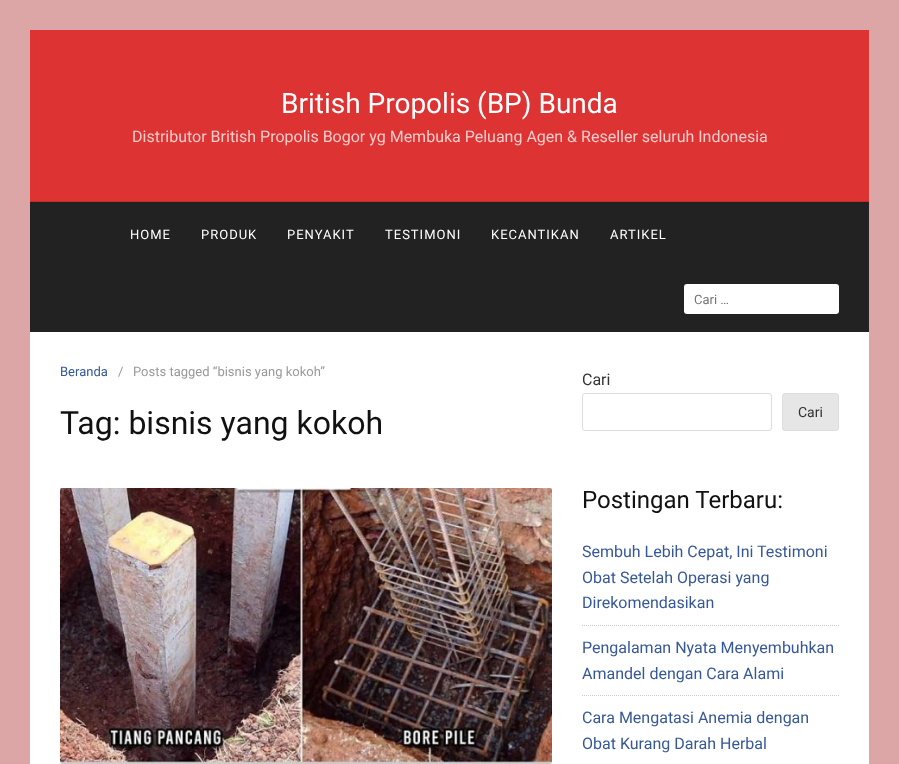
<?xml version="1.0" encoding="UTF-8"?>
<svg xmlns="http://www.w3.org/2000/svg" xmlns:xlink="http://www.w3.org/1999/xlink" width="899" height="764">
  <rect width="100%" height="100%" fill="#dda6a6" />
  <rect x="30" y="30" width="839" height="171" fill="#dd3333" />
  <rect x="30" y="201" width="839" height="1" fill="#c12d2d" />
  <rect x="30" y="332" width="839" height="432" fill="#ffffff" />
  <rect x="30" y="202" width="839" height="130" fill="#222222" />
  <rect x="684" y="284" width="155" height="30" rx="3" fill="#ffffff" />
  <image x="60" y="488" width="492" height="276" xlink:href="image1.png" />
  <rect x="582.5" y="393.5" width="189" height="37" rx="2.5" fill="none" stroke="#dddddd" />
  <rect x="782.5" y="393.5" width="56" height="37" rx="2.5" fill="#e6e6e6" stroke="#dddddd" />
  <path d="M 582 625.5 h 257" fill="none" stroke="#cccccc" stroke-dasharray="1 1" />
  <path d="M 582 695.5 h 257" fill="none" stroke="#cccccc" stroke-dasharray="1 1" />
  <text x="281" y="113" style="font-family: Roboto; font-size: 28px; fill: #ffffff">British Propolis (BP) Bunda</text>
  <text x="132" y="142" style="font-family: Roboto; font-size: 16px; fill: #f7cccc">Distributor British Propolis Bogor yg Membuka Peluang Agen &amp; Reseller seluruh Indonesia</text>
  <text x="130" y="239" style="font-family: Roboto; font-size: 13px; letter-spacing: 1px; fill: #ffffff">HOME</text>
  <text x="201" y="239" style="font-family: Roboto; font-size: 13px; letter-spacing: 1px; fill: #ffffff">PRODUK</text>
  <text x="287" y="239" style="font-family: Roboto; font-size: 13px; letter-spacing: 1px; fill: #ffffff">PENYAKIT</text>
  <text x="385" y="239" style="font-family: Roboto; font-size: 13px; letter-spacing: 1px; fill: #ffffff">TESTIMONI</text>
  <text x="491" y="239" style="font-family: Roboto; font-size: 13px; letter-spacing: 1px; fill: #ffffff">KECANTIKAN</text>
  <text x="610" y="239" style="font-family: Roboto; font-size: 13px; letter-spacing: 1px; fill: #ffffff">ARTIKEL</text>
  <text x="694" y="304" style="font-family: Roboto; font-size: 13px; fill: #757575">Cari …</text>
  <text x="60" y="376" style="font-family: Roboto; font-size: 13px; fill: #365899">Beranda</text>
  <text x="118" y="376" style="font-family: Roboto; font-size: 13px; fill: #999999">/</text>
  <text x="133" y="376" style="font-family: Roboto; font-size: 13px; fill: #999999">Posts tagged “bisnis yang kokoh”</text>
  <text x="60" y="434" style="font-family: Roboto; font-size: 32px; fill: #111111">Tag: bisnis yang kokoh</text>
  <text x="582" y="385" style="font-family: Roboto; font-size: 16px; fill: #333333">Cari</text>
  <text x="798" y="417" style="font-family: Roboto; font-size: 14px; fill: #333333">Cari</text>
  <text x="582" y="508" style="font-family: Roboto; font-size: 24px; fill: #111111">Postingan Terbaru:</text>
  <text x="582" y="557" style="font-family: Roboto; font-size: 16px; fill: #365899">Sembuh Lebih Cepat, Ini Testimoni</text>
  <text x="582" y="583" style="font-family: Roboto; font-size: 16px; fill: #365899">Obat Setelah Operasi yang</text>
  <text x="582" y="608" style="font-family: Roboto; font-size: 16px; fill: #365899">Direkomendasikan</text>
  <text x="582" y="653" style="font-family: Roboto; font-size: 16px; fill: #365899">Pengalaman Nyata Menyembuhkan</text>
  <text x="582" y="679" style="font-family: Roboto; font-size: 16px; fill: #365899">Amandel dengan Cara Alami</text>
  <text x="582" y="723" style="font-family: Roboto; font-size: 16px; fill: #365899">Cara Mengatasi Anemia dengan</text>
  <text x="582" y="749" style="font-family: Roboto; font-size: 16px; fill: #365899">Obat Kurang Darah Herbal</text>
</svg>
